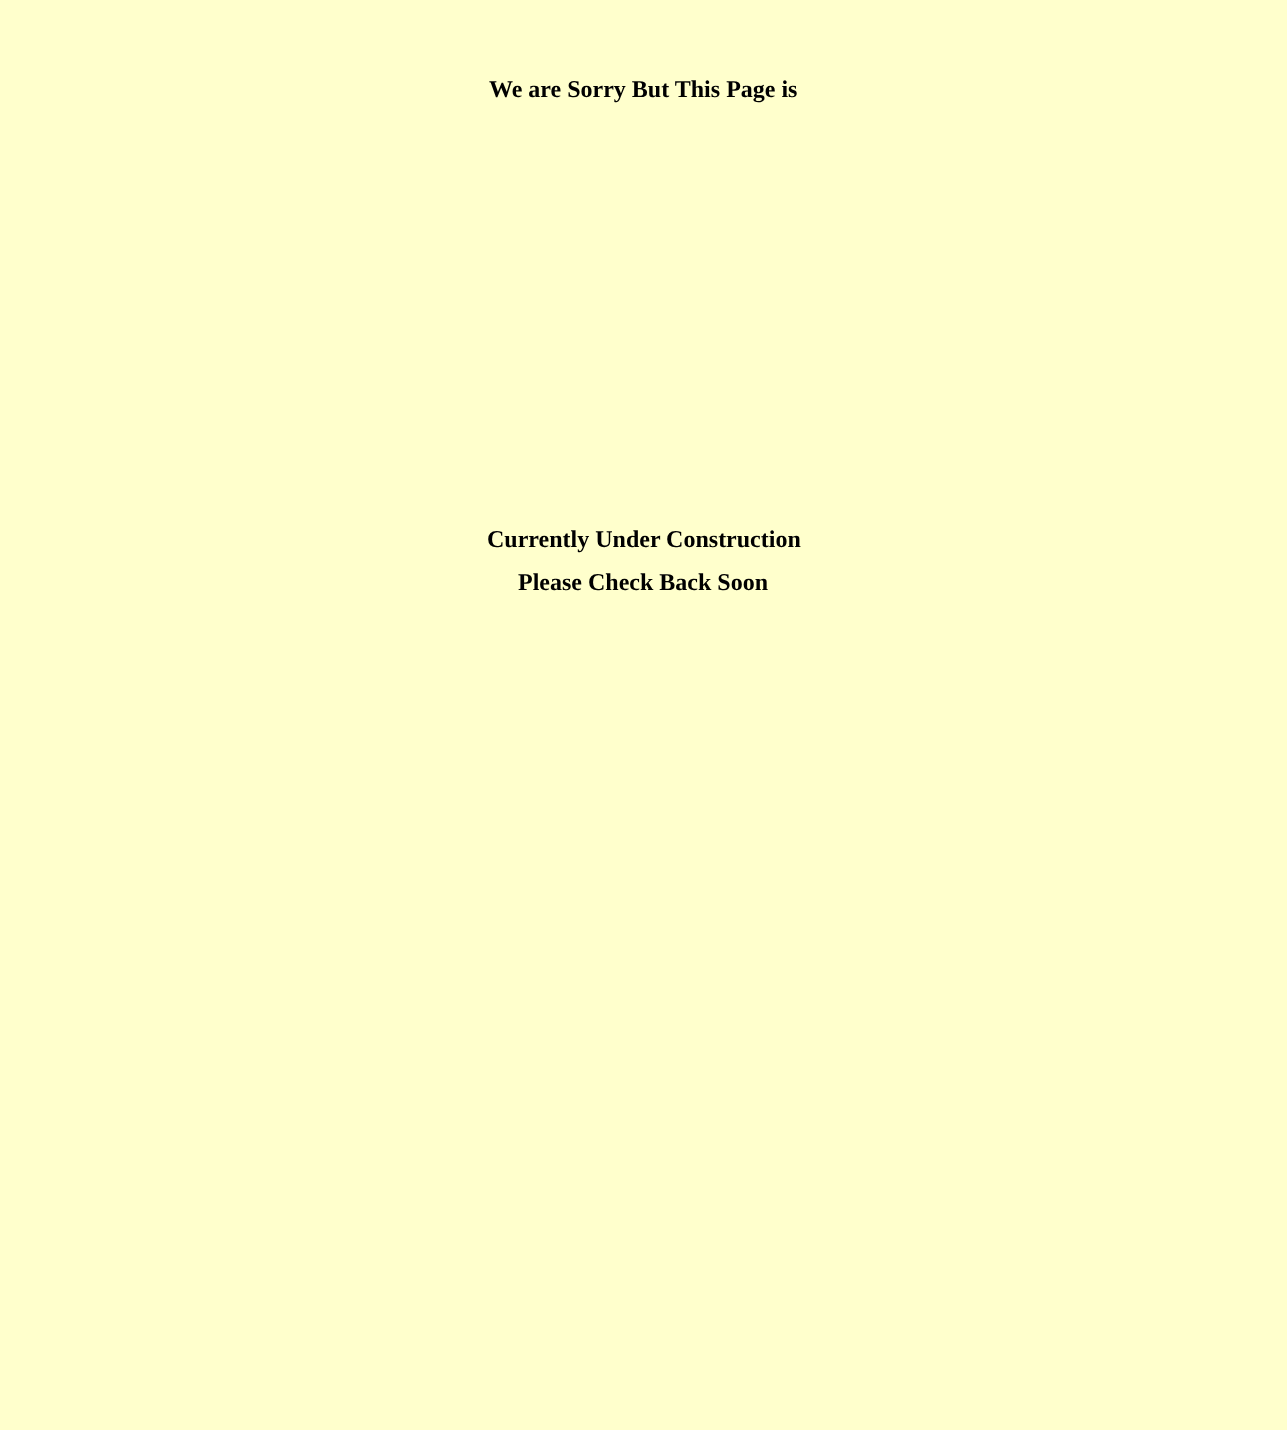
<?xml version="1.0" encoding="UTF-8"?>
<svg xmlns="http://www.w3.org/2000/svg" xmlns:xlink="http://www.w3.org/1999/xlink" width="1287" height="1430">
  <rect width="100%" height="100%" fill="#ffffcc" />
  <text x="489" y="97" style="font-family: Liberation Serif; font-size: 24px; font-weight: bold; fill: #000000">We are Sorry But This Page is</text>
  <text x="487" y="547" style="font-family: Liberation Serif; font-size: 24px; font-weight: bold; fill: #000000">Currently Under Construction</text>
  <text x="518" y="590" style="font-family: Liberation Serif; font-size: 24px; font-weight: bold; fill: #000000">Please Check Back Soon</text>
</svg>
